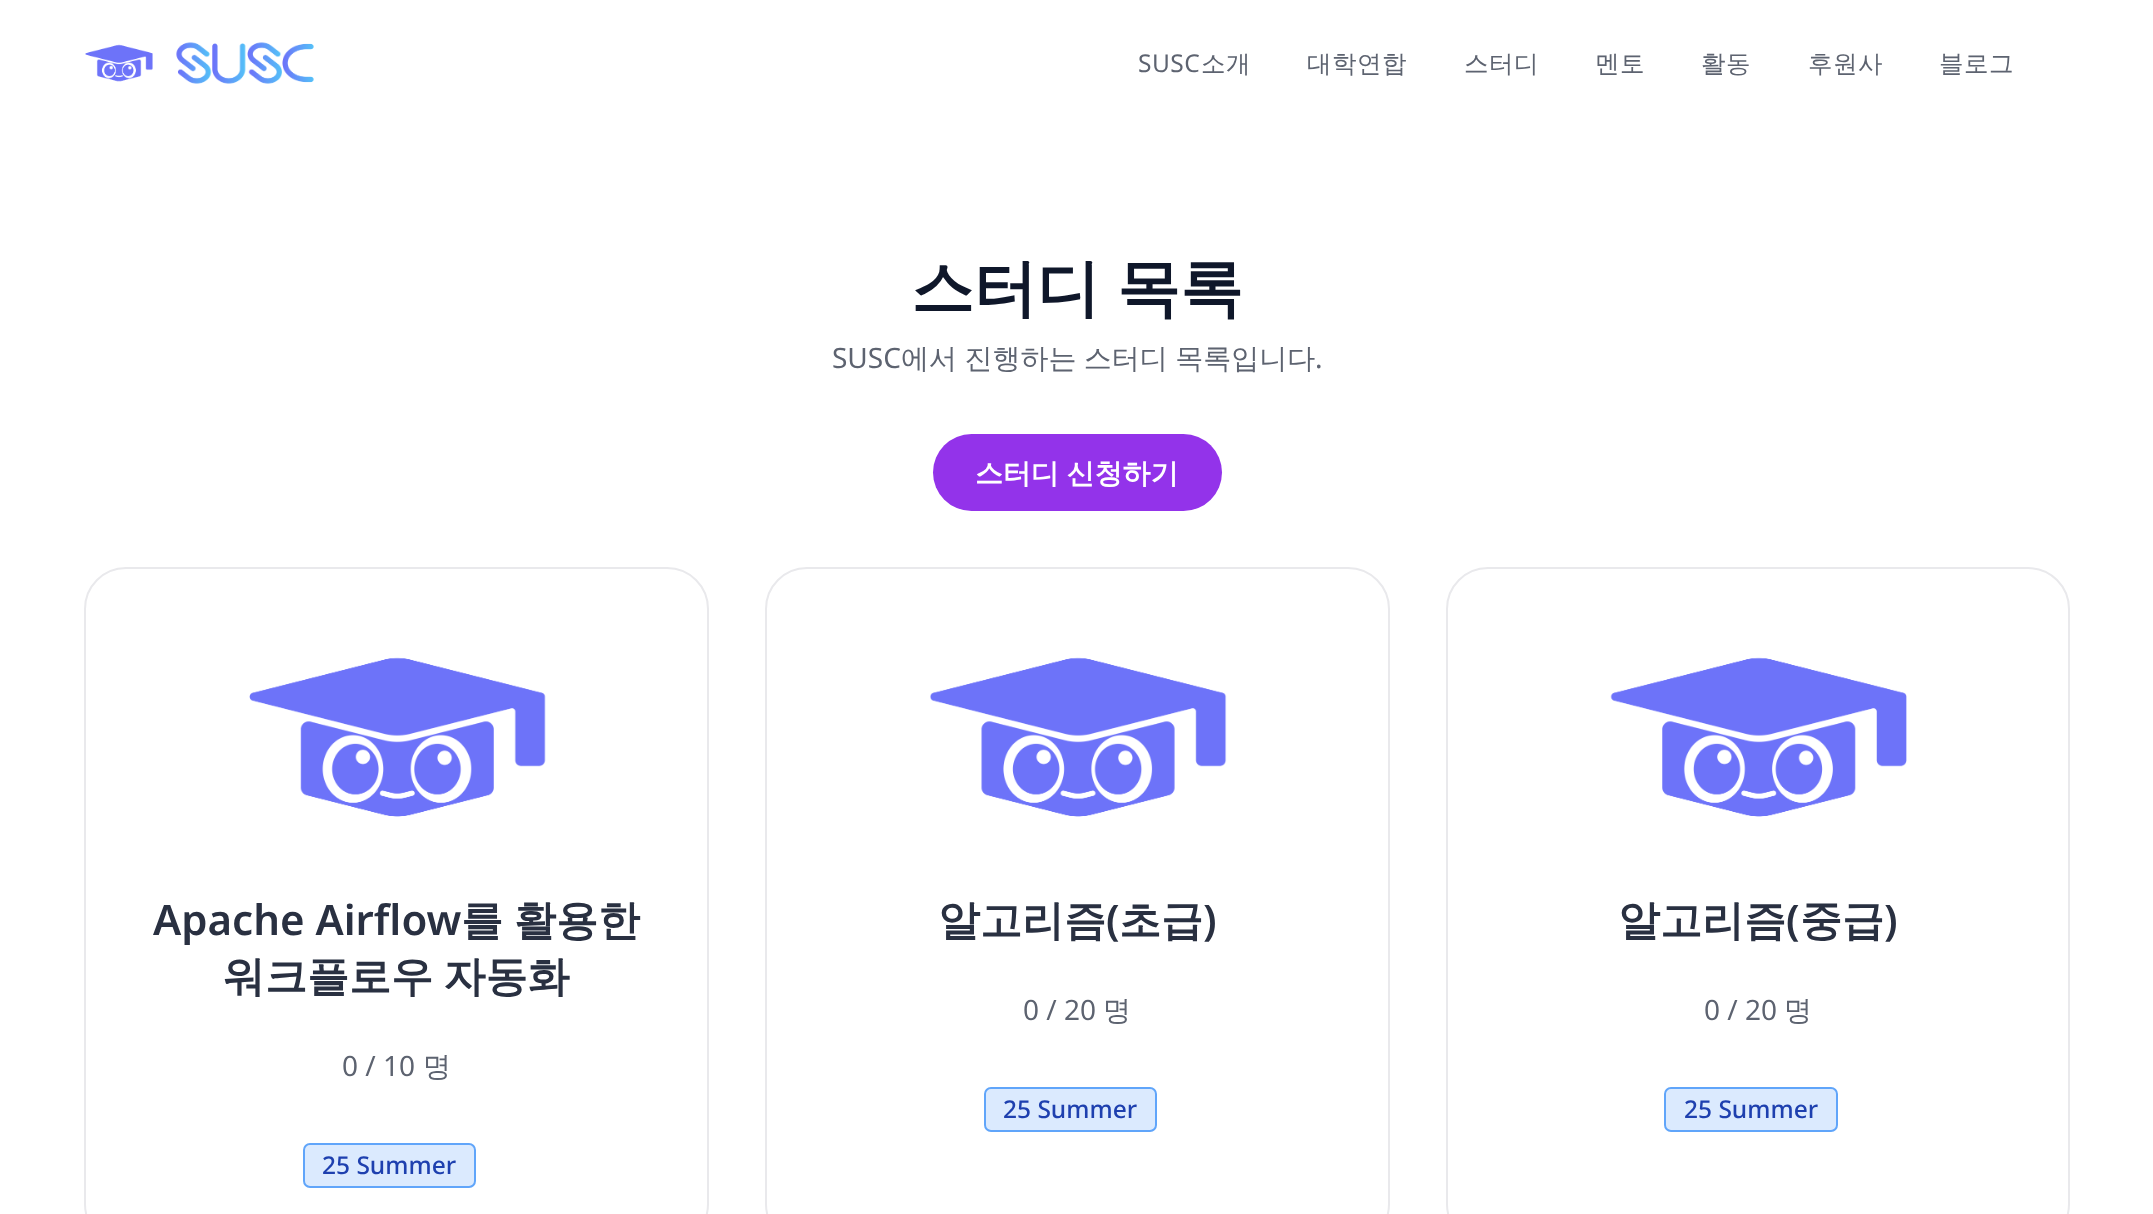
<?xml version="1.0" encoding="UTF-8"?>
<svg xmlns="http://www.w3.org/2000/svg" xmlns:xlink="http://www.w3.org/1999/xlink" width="2153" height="1214">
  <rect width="100%" height="100%" fill="#ffffff" />
  <image x="85" y="44" width="68" height="38" xlink:href="image1.png" />
  <image x="176" y="42" width="138" height="42" xlink:href="image2.png" />
  <rect x="933" y="434" width="289" height="77" rx="38.5" fill="#9333ea" />
  <rect x="85" y="568" width="623" height="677" rx="41" fill="none" stroke="#e9e9ec" stroke-width="2" />
  <image x="249" y="657" width="297" height="160" xlink:href="image3.png" />
  <rect x="304" y="1144" width="171" height="43" rx="6" fill="#dbeafe" stroke="#60a5fa" stroke-width="2" />
  <rect x="766" y="568" width="623" height="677" rx="41" fill="none" stroke="#e9e9ec" stroke-width="2" />
  <image x="930" y="657" width="297" height="160" xlink:href="image4.png" />
  <rect x="985" y="1088" width="171" height="43" rx="6" fill="#dbeafe" stroke="#60a5fa" stroke-width="2" />
  <rect x="1447" y="568" width="622" height="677" rx="41" fill="none" stroke="#e9e9ec" stroke-width="2" />
  <image x="1610" y="657" width="297" height="160" xlink:href="image5.png" />
  <rect x="1665" y="1088" width="172" height="43" rx="6" fill="#dbeafe" stroke="#60a5fa" stroke-width="2" />
  <text x="1138" y="72" style="font-family: Noto Sans; font-size: 24.5px; letter-spacing: 0.5px; fill: #5d6370">SUSC</text>
  <text x="1201" y="72" style="font-family: WenQuanYi Zen Hei; font-size: 24.5px; font-weight: 500; letter-spacing: 0.5px; fill: #5d6370">소개</text>
  <text x="1307" y="72" style="font-family: WenQuanYi Zen Hei; font-size: 24.5px; font-weight: 500; letter-spacing: 0.5px; fill: #5d6370">대학연합</text>
  <text x="1464" y="72" style="font-family: WenQuanYi Zen Hei; font-size: 24.5px; font-weight: 500; letter-spacing: 0.5px; fill: #5d6370">스터디</text>
  <text x="1595" y="72" style="font-family: WenQuanYi Zen Hei; font-size: 24.5px; font-weight: 500; letter-spacing: 0.5px; fill: #5d6370">멘토</text>
  <text x="1701" y="72" style="font-family: WenQuanYi Zen Hei; font-size: 24.5px; font-weight: 500; letter-spacing: 0.5px; fill: #5d6370">활동</text>
  <text x="1808" y="72" style="font-family: WenQuanYi Zen Hei; font-size: 24.5px; font-weight: 500; letter-spacing: 0.5px; fill: #5d6370">후원사</text>
  <text x="1939" y="72" style="font-family: WenQuanYi Zen Hei; font-size: 24.5px; font-weight: 500; letter-spacing: 0.5px; fill: #5d6370">블로그</text>
  <text x="911" y="310" word-spacing="-2" style="font-family: WenQuanYi Zen Hei; font-size: 63px; font-weight: bold; fill: #0f172a">스터디 목록</text>
  <text x="832" y="368" style="font-family: Noto Sans; font-size: 28px; fill: #5d6370">SUSC</text>
  <text x="901" y="368" word-spacing="-1" style="font-family: WenQuanYi Zen Hei; font-size: 28px; font-weight: 500; fill: #5d6370">에서 진행하는 스터디 목록입니다</text>
  <text x="1315" y="368" style="font-family: Noto Sans; font-size: 28px; fill: #5d6370">.</text>
  <text x="975" y="483" word-spacing="-1" style="font-family: WenQuanYi Zen Hei; font-size: 28px; font-weight: bold; fill: #ffffff">스터디 신청하기</text>
  <text x="153" y="935" style="font-family: Noto Sans; font-size: 42px; font-weight: 600; fill: #293041">Apache Airflow</text>
  <text x="461" y="935" style="font-family: WenQuanYi Zen Hei; font-size: 42px; font-weight: bold; fill: #293041">를</text>
  <text x="514" y="935" style="font-family: WenQuanYi Zen Hei; font-size: 42px; font-weight: bold; fill: #293041">활용한</text>
  <text x="223" y="991" word-spacing="-2" style="font-family: WenQuanYi Zen Hei; font-size: 42px; font-weight: bold; fill: #293041">워크플로우 자동화</text>
  <text x="342" y="1076" style="font-family: Noto Sans; font-size: 28px; fill: #5d6370">0 / 10</text>
  <text x="423" y="1076" style="font-family: WenQuanYi Zen Hei; font-size: 28px; font-weight: 500; fill: #5d6370">명</text>
  <text x="322" y="1174" style="font-family: Noto Sans; font-size: 24.5px; font-weight: 500; fill: #1e40af">25 Summer</text>
  <text x="938" y="935" style="font-family: WenQuanYi Zen Hei; font-size: 42px; font-weight: bold; fill: #293041">알고리즘</text>
  <text x="1106" y="935" style="font-family: Noto Sans; font-size: 42px; font-weight: 600; fill: #293041">(</text>
  <text x="1119" y="935" style="font-family: WenQuanYi Zen Hei; font-size: 42px; font-weight: bold; fill: #293041">초급</text>
  <text x="1203" y="935" style="font-family: Noto Sans; font-size: 42px; font-weight: 600; fill: #293041">)</text>
  <text x="1023" y="1020" style="font-family: Noto Sans; font-size: 28px; fill: #5d6370">0 / 20</text>
  <text x="1103" y="1020" style="font-family: WenQuanYi Zen Hei; font-size: 28px; font-weight: 500; fill: #5d6370">명</text>
  <text x="1003" y="1118" style="font-family: Noto Sans; font-size: 24.5px; font-weight: 500; fill: #1e40af">25 Summer</text>
  <text x="1618" y="935" style="font-family: WenQuanYi Zen Hei; font-size: 42px; font-weight: bold; fill: #293041">알고리즘</text>
  <text x="1786" y="935" style="font-family: Noto Sans; font-size: 42px; font-weight: 600; fill: #293041">(</text>
  <text x="1800" y="935" style="font-family: WenQuanYi Zen Hei; font-size: 42px; font-weight: bold; fill: #293041">중급</text>
  <text x="1884" y="935" style="font-family: Noto Sans; font-size: 42px; font-weight: 600; fill: #293041">)</text>
  <text x="1704" y="1020" style="font-family: Noto Sans; font-size: 28px; fill: #5d6370">0 / 20</text>
  <text x="1784" y="1020" style="font-family: WenQuanYi Zen Hei; font-size: 28px; font-weight: 500; fill: #5d6370">명</text>
  <text x="1684" y="1118" style="font-family: Noto Sans; font-size: 24.5px; font-weight: 500; fill: #1e40af">25 Summer</text>
</svg>
